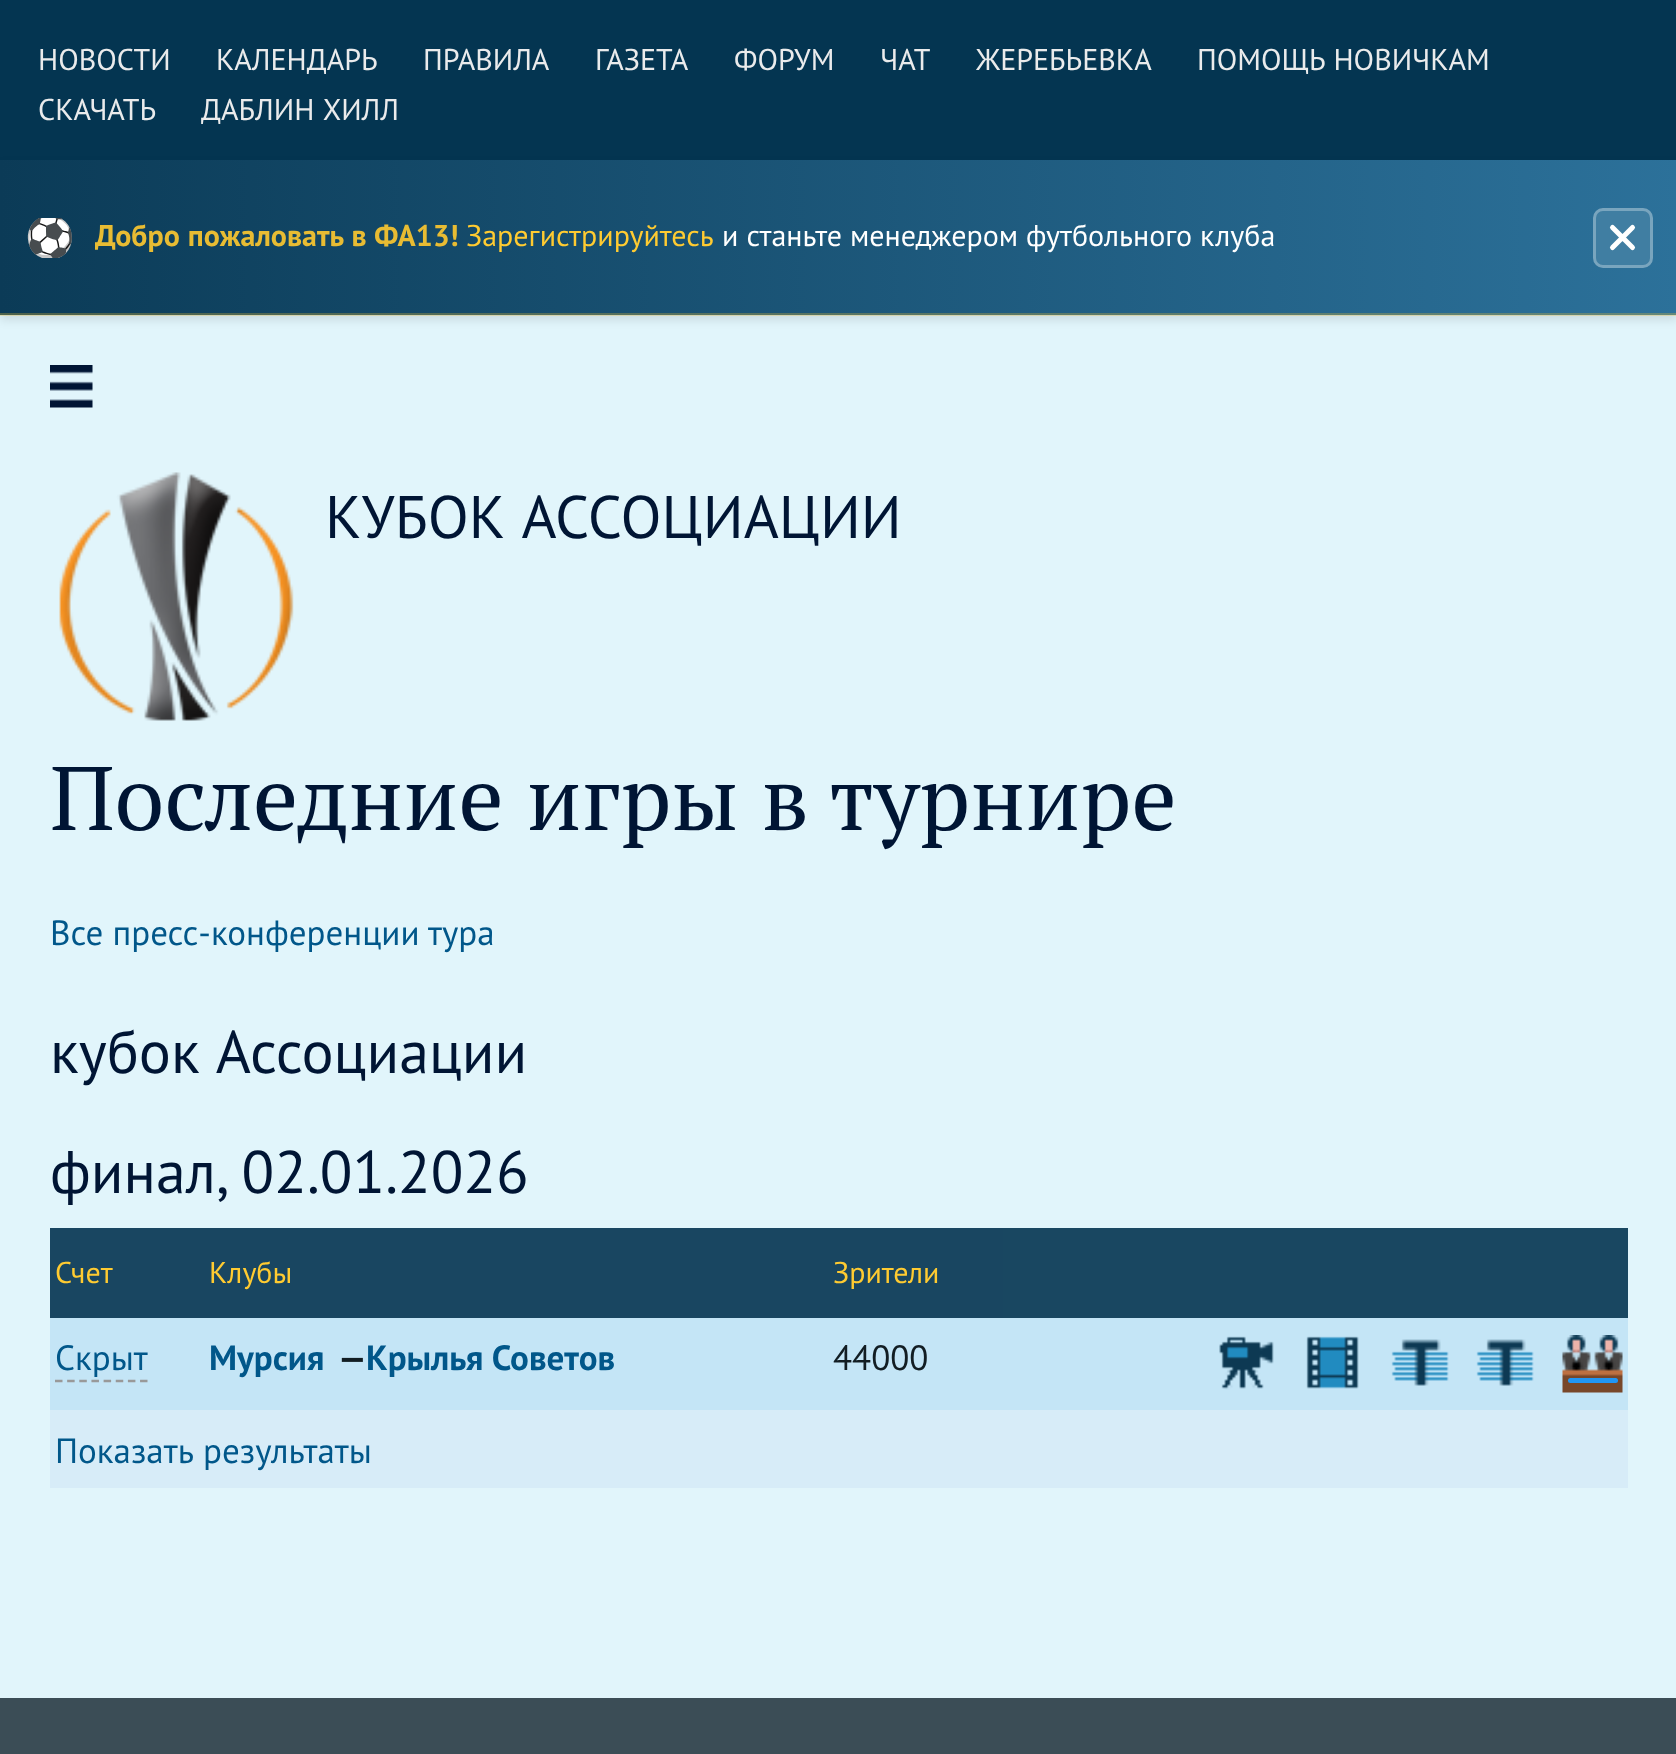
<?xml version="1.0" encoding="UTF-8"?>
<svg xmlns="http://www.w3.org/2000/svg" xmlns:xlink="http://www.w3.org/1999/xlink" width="1676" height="1754">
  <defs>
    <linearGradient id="g1" gradientUnits="userSpaceOnUse" x1="0" y1="236" x2="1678" y2="236"><stop offset="0" stop-color="#0b3b57" /><stop offset="1" stop-color="#2c719a" /></linearGradient>
    <clipPath id="clip1"><rect x="25" y="218" width="1540" height="40" /></clipPath>
  </defs>
  <rect width="100%" height="100%" fill="#e1f5fb" />
  <rect width="1676" height="160" fill="#043551" />
  <rect y="165" width="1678" height="155" fill="#000000" fill-opacity="0.1" filter="blur(5px)" />
  <rect y="160" width="1676" height="155" fill="url(#g1)" />
  <rect y="313" width="1676" height="3" fill="#e8bc33" fill-opacity="0.3" />
  <rect x="1593" y="208" width="60" height="60" rx="10" fill="#407ea2" />
  <rect x="1594.5" y="209.5" width="57" height="57" rx="8.5" fill="none" stroke="#ffffff" stroke-opacity="0.3" stroke-width="3" />
  <path d="M 1632.5 227.5 l -20 20 m 0 -20 l 20 20" fill="none" stroke="#ffffff" stroke-width="5" stroke-linecap="round" />
  <image x="50" y="365" width="43" height="43" xlink:href="image1.png" />
  <image x="59" y="472" width="235" height="249" xlink:href="image2.png" />
  <rect x="50" y="1228" width="953" height="90" fill="#194661" />
  <rect x="1003" y="1228" width="625" height="90" fill="#0e3d59" fill-opacity="0.95" />
  <rect x="50" y="1318" width="953" height="92" fill="#c4e5f6" />
  <path d="M 55 1381 h 92.5" fill="none" stroke="#999999" stroke-width="2.5" stroke-dasharray="7.5 4.65" />
  <rect x="1003" y="1318" width="625" height="92" fill="#bde1f5" fill-opacity="0.8" />
  <image x="1219" y="1336" width="55" height="54" xlink:href="image3.png" />
  <image x="1306" y="1336" width="53" height="53" xlink:href="image4.png" />
  <image x="1391" y="1339" width="58" height="47" xlink:href="image5.png" />
  <image x="1476" y="1339" width="58" height="47" xlink:href="image5.png" />
  <image x="1562" y="1335" width="61" height="58" xlink:href="image6.png" />
  <rect x="1568" y="1378" width="50" height="5" rx="2.5" fill="#2196f3" />
  <rect x="50" y="1410" width="1578" height="78" fill="#d4eaf7" fill-opacity="0.8" />
  <rect y="1698" width="1676" height="56" fill="#3b4d56" />
  <text x="38" y="70" style="font-family: PT Sans; font-size: 30px; fill: #eaebec">НОВОСТИ</text>
  <text x="216" y="70" style="font-family: PT Sans; font-size: 30px; fill: #eaebec">КАЛЕНДАРЬ</text>
  <text x="423" y="70" style="font-family: PT Sans; font-size: 30px; fill: #eaebec">ПРАВИЛА</text>
  <text x="595" y="70" style="font-family: PT Sans; font-size: 30px; fill: #eaebec">ГАЗЕТА</text>
  <text x="734" y="70" style="font-family: PT Sans; font-size: 30px; fill: #eaebec">ФОРУМ</text>
  <text x="880" y="70" style="font-family: PT Sans; font-size: 30px; fill: #eaebec">ЧАТ</text>
  <text x="976" y="70" style="font-family: PT Sans; font-size: 30px; fill: #eaebec">ЖЕРЕБЬЕВКА</text>
  <text x="1197" y="70" word-spacing="1" style="font-family: PT Sans; font-size: 30px; fill: #eaebec">ПОМОЩЬ НОВИЧКАМ</text>
  <text x="38" y="120" style="font-family: PT Sans; font-size: 30px; fill: #eaebec">СКАЧАТЬ</text>
  <text x="201" y="120" word-spacing="1" style="font-family: PT Sans; font-size: 30px; fill: #eaebec">ДАБЛИН ХИЛЛ</text>
  <g clip-path="url(#clip1)">
    <text x="25" y="251" style="font-family: Noto Color Emoji; font-size: 40px; fill: #121d23">⚽</text>
  </g>
  <text x="95" y="246" word-spacing="0.5" style="font-family: PT Sans; font-size: 30px; font-weight: bold; fill: #e8bc33">Добро пожаловать в ФА13!</text>
  <text x="466" y="246" style="font-family: PT Sans; font-size: 30px; fill: #ffcb31">Зарегистрируйтесь</text>
  <text x="722" y="246" style="font-family: PT Sans; font-size: 30px; fill: #ffffff">и станьте менеджером футбольного клуба</text>
  <text x="325" y="538" word-spacing="2" style="font-family: PT Sans; font-size: 60px; fill: #001534">КУБОК АССОЦИАЦИИ</text>
  <text x="50" y="830" word-spacing="1" style="font-family: PT Serif; font-size: 90px; fill: #001534">Последние игры в турнире</text>
  <text x="50" y="945" style="font-family: PT Sans; font-size: 35px; fill: #01578a">Все пресс-конференции тура</text>
  <text x="50" y="1073" word-spacing="2" style="font-family: PT Sans; font-size: 60px; fill: #001534">кубок Ассоциации</text>
  <text x="50" y="1193" style="font-family: PT Sans; font-size: 60px; fill: #001534">финал</text>
  <text x="216" y="1193" word-spacing="-4" style="font-family: PT Sans; font-size: 60px; fill: #001534">, 02.01.2026</text>
  <text x="55" y="1283" style="font-family: PT Sans; font-size: 30px; fill: #ffcb31">Счет</text>
  <text x="209" y="1283" style="font-family: PT Sans; font-size: 30px; fill: #ffcb31">Клубы</text>
  <text x="833" y="1283" style="font-family: PT Sans; font-size: 30px; fill: #ffcb31">Зрители</text>
  <text x="55" y="1370" style="font-family: PT Sans; font-size: 35px; fill: #01578a">Скрыт</text>
  <text x="209" y="1370" style="font-family: PT Sans; font-size: 35px; font-weight: bold; fill: #01578a">Мурсия</text>
  <text x="338" y="1370" style="font-family: PT Sans; font-size: 35px; font-weight: bold; fill: #121d23">—</text>
  <text x="366" y="1370" style="font-family: PT Sans; font-size: 35px; font-weight: bold; fill: #01578a">Крылья Советов</text>
  <text x="833" y="1370" style="font-family: PT Sans; font-size: 35px; fill: #121d23">44000</text>
  <text x="55" y="1463" word-spacing="1" style="font-family: PT Sans; font-size: 35px; fill: #01578a">Показать результаты</text>
</svg>
